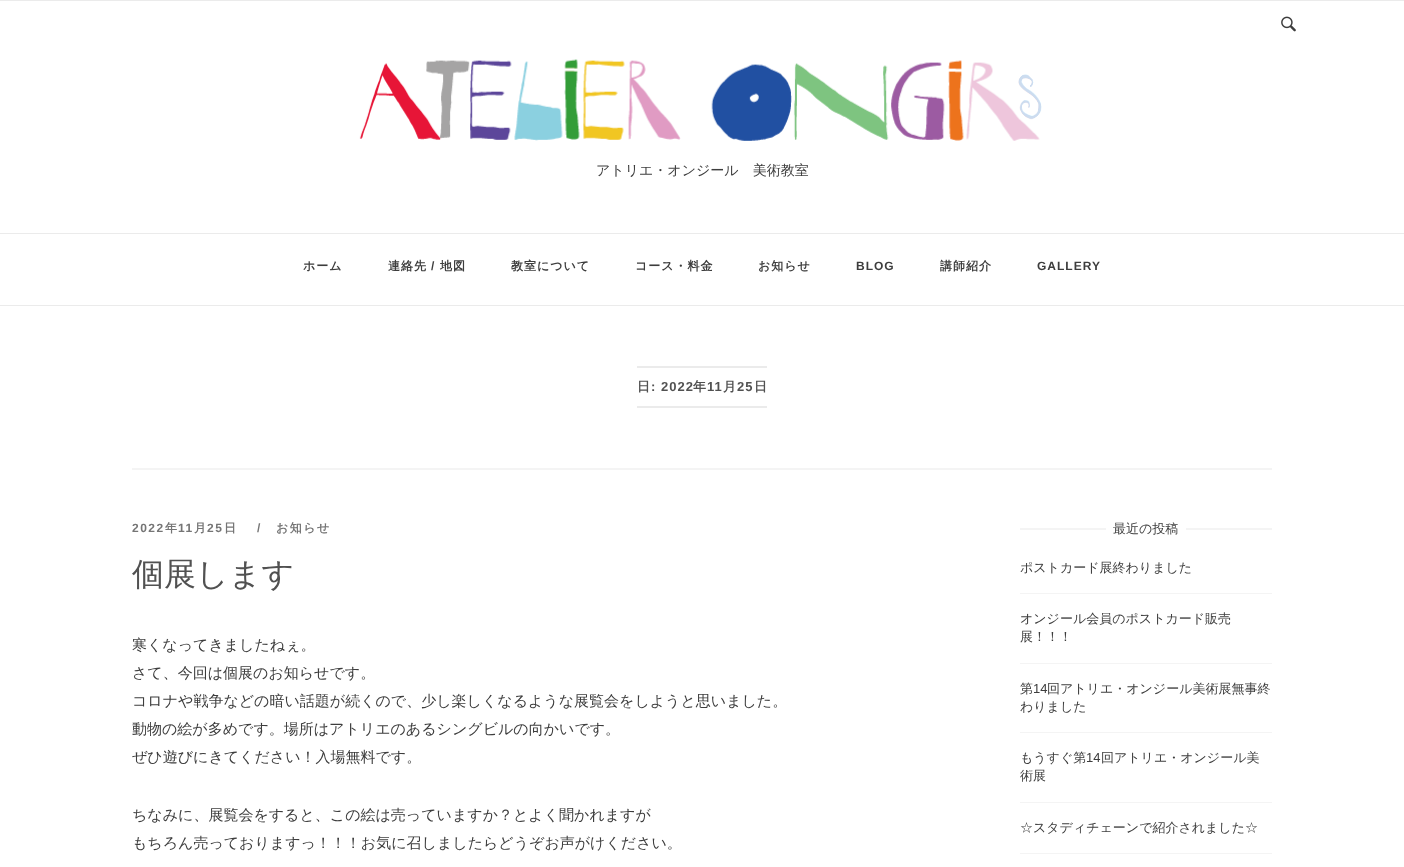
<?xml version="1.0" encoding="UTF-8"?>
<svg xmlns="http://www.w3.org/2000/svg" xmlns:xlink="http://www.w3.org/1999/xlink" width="1404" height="867">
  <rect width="100%" height="100%" fill="#ffffff" />
  <rect y="305" width="1404" height="1" fill="#ebebeb" />
  <rect width="1404" height="1" fill="#ebebeb" />
  <image x="1281" y="16" width="15" height="16" xlink:href="image1.png" />
  <image x="359" y="59" width="683" height="82" xlink:href="image2.png" />
  <rect y="233" width="1404" height="1" fill="#ebebeb" />
  <rect x="132" y="468" width="1140" height="2" fill="#f4f4f4" />
  <rect x="637" y="366" width="130" height="2" fill="#ebebeb" />
  <rect x="637" y="406" width="130" height="2" fill="#ebebeb" />
  <rect x="1020" y="528" width="86" height="2" fill="#f4f4f4" />
  <rect x="1186" y="528" width="86" height="2" fill="#f4f4f4" />
  <rect x="1020" y="593" width="252" height="1" fill="#f4f4f4" />
  <rect x="1020" y="663" width="252" height="1" fill="#f4f4f4" />
  <rect x="1020" y="732" width="252" height="1" fill="#f4f4f4" />
  <rect x="1020" y="802" width="252" height="1" fill="#f4f4f4" />
  <rect x="1020" y="853" width="252" height="1" fill="#f4f4f4" />
  <text x="596" y="175" style="font-family: WenQuanYi Zen Hei; font-size: 14px; font-weight: 500; fill: #3d3d3d">アトリエ・オンジール　美術教室</text>
  <text x="303" y="270" style="font-family: WenQuanYi Zen Hei; font-size: 12px; font-weight: bold; letter-spacing: 1px; fill: #3d3d3d">ホーム</text>
  <text x="388" y="270" style="font-family: WenQuanYi Zen Hei; font-size: 12px; font-weight: bold; letter-spacing: 1px; fill: #3d3d3d">連絡先</text>
  <text x="431" y="270" style="font-family: Liberation Sans; font-size: 12px; font-weight: bold; letter-spacing: 1px; fill: #3d3d3d">/</text>
  <text x="440" y="270" style="font-family: WenQuanYi Zen Hei; font-size: 12px; font-weight: bold; letter-spacing: 1px; fill: #3d3d3d">地図</text>
  <text x="511" y="270" style="font-family: WenQuanYi Zen Hei; font-size: 12px; font-weight: bold; letter-spacing: 1px; fill: #3d3d3d">教室について</text>
  <text x="635" y="270" style="font-family: WenQuanYi Zen Hei; font-size: 12px; font-weight: bold; letter-spacing: 1px; fill: #3d3d3d">コース・料金</text>
  <text x="758" y="270" style="font-family: WenQuanYi Zen Hei; font-size: 12px; font-weight: bold; letter-spacing: 1px; fill: #3d3d3d">お知らせ</text>
  <text x="856" y="270" style="font-family: Liberation Sans; font-size: 12px; font-weight: bold; letter-spacing: 1px; fill: #3d3d3d">BLOG</text>
  <text x="940" y="270" style="font-family: WenQuanYi Zen Hei; font-size: 12px; font-weight: bold; letter-spacing: 1px; fill: #3d3d3d">講師紹介</text>
  <text x="1037" y="270" style="font-family: Liberation Sans; font-size: 12px; font-weight: bold; letter-spacing: 1px; fill: #3d3d3d">GALLERY</text>
  <text x="637" y="391" style="font-family: WenQuanYi Zen Hei; font-size: 13px; font-weight: bold; letter-spacing: 1px; fill: #515151">日</text>
  <text x="651" y="391" style="font-family: Liberation Sans; font-size: 13px; font-weight: bold; letter-spacing: 1px; fill: #515151">: 2022</text>
  <text x="693" y="391" style="font-family: WenQuanYi Zen Hei; font-size: 13px; font-weight: bold; letter-spacing: 1px; fill: #515151">年</text>
  <text x="707" y="391" style="font-family: Liberation Sans; font-size: 13px; font-weight: bold; letter-spacing: 1px; fill: #515151">11</text>
  <text x="723" y="391" style="font-family: WenQuanYi Zen Hei; font-size: 13px; font-weight: bold; letter-spacing: 1px; fill: #515151">月</text>
  <text x="737" y="391" style="font-family: Liberation Sans; font-size: 13px; font-weight: bold; letter-spacing: 1px; fill: #515151">25</text>
  <text x="754" y="391" style="font-family: WenQuanYi Zen Hei; font-size: 13px; font-weight: bold; letter-spacing: 1px; fill: #515151">日</text>
  <text x="132" y="532" style="font-family: Liberation Sans; font-size: 12px; font-weight: bold; letter-spacing: 1.5px; fill: #757575">2022</text>
  <text x="165" y="532" style="font-family: WenQuanYi Zen Hei; font-size: 12px; font-weight: bold; letter-spacing: 1.5px; fill: #757575">年</text>
  <text x="178" y="532" style="font-family: Liberation Sans; font-size: 12px; font-weight: bold; letter-spacing: 1.5px; fill: #757575">11</text>
  <text x="194" y="532" style="font-family: WenQuanYi Zen Hei; font-size: 12px; font-weight: bold; letter-spacing: 1.5px; fill: #757575">月</text>
  <text x="207" y="532" style="font-family: Liberation Sans; font-size: 12px; font-weight: bold; letter-spacing: 1.5px; fill: #757575">25</text>
  <text x="224" y="532" style="font-family: WenQuanYi Zen Hei; font-size: 12px; font-weight: bold; letter-spacing: 1.5px; fill: #757575">日</text>
  <text x="257" y="532" style="font-family: Liberation Sans; font-size: 12px; font-weight: bold; letter-spacing: 1.5px; fill: #757575">/</text>
  <text x="276" y="532" style="font-family: WenQuanYi Zen Hei; font-size: 12px; font-weight: bold; letter-spacing: 1.5px; fill: #757575">お知らせ</text>
  <text x="132" y="585" style="font-family: WenQuanYi Zen Hei; font-size: 32px; font-weight: 500; fill: #515151">個展します</text>
  <text x="132" y="650" style="font-family: WenQuanYi Zen Hei; font-size: 15px; font-weight: 500; fill: #3d3d3d">寒くなってきましたねぇ。</text>
  <text x="132" y="678" style="font-family: WenQuanYi Zen Hei; font-size: 15px; font-weight: 500; fill: #3d3d3d">さて、今回は個展のお知らせです。</text>
  <text x="132" y="706" style="font-family: WenQuanYi Zen Hei; font-size: 15px; font-weight: 500; fill: #3d3d3d">コロナや戦争などの暗い話題が続くので、少し楽しくなるような展覧会をしようと思いました。</text>
  <text x="132" y="734" style="font-family: WenQuanYi Zen Hei; font-size: 15px; font-weight: 500; fill: #3d3d3d">動物の絵が多めです。場所はアトリエのあるシングビルの向かいです。</text>
  <text x="132" y="762" style="font-family: WenQuanYi Zen Hei; font-size: 15px; font-weight: 500; fill: #3d3d3d">ぜひ遊びにきてください！入場無料です。</text>
  <text x="132" y="820" style="font-family: WenQuanYi Zen Hei; font-size: 15px; font-weight: 500; fill: #3d3d3d">ちなみに、展覧会をすると、この絵は売っていますか？とよく聞かれますが</text>
  <text x="132" y="848" style="font-family: WenQuanYi Zen Hei; font-size: 15px; font-weight: 500; fill: #3d3d3d">もちろん売っておりますっ！！！お気に召しましたらどうぞお声がけください。</text>
  <text x="1113" y="533" style="font-family: WenQuanYi Zen Hei; font-size: 13px; font-weight: 500; fill: #3d3d3d">最近の投稿</text>
  <text x="1020" y="572" style="font-family: WenQuanYi Zen Hei; font-size: 13px; font-weight: 500; fill: #3d3d3d">ポストカード展終わりました</text>
  <text x="1020" y="623" style="font-family: WenQuanYi Zen Hei; font-size: 13px; font-weight: 500; fill: #3d3d3d">オンジール会員のポストカード販売</text>
  <text x="1020" y="641" style="font-family: WenQuanYi Zen Hei; font-size: 13px; font-weight: 500; fill: #3d3d3d">展！！！</text>
  <text x="1020" y="693" style="font-family: WenQuanYi Zen Hei; font-size: 13px; font-weight: 500; fill: #3d3d3d">第</text>
  <text x="1033" y="693" style="font-family: Liberation Sans; font-size: 13px; fill: #3d3d3d">14</text>
  <text x="1047" y="693" style="font-family: WenQuanYi Zen Hei; font-size: 13px; font-weight: 500; fill: #3d3d3d">回アトリエ・オンジール美術展無事終</text>
  <text x="1020" y="711" style="font-family: WenQuanYi Zen Hei; font-size: 13px; font-weight: 500; fill: #3d3d3d">わりました</text>
  <text x="1020" y="762" style="font-family: WenQuanYi Zen Hei; font-size: 13px; font-weight: 500; fill: #3d3d3d">もうすぐ第</text>
  <text x="1086" y="762" style="font-family: Liberation Sans; font-size: 13px; fill: #3d3d3d">14</text>
  <text x="1101" y="762" style="font-family: WenQuanYi Zen Hei; font-size: 13px; font-weight: 500; fill: #3d3d3d">回アトリエ・オンジール美</text>
  <text x="1020" y="780" style="font-family: WenQuanYi Zen Hei; font-size: 13px; font-weight: 500; fill: #3d3d3d">術展</text>
  <text x="1020" y="832" style="font-family: WenQuanYi Zen Hei; font-size: 13px; font-weight: 500; fill: #3d3d3d">☆スタディチェーンで紹介されました☆</text>
</svg>
